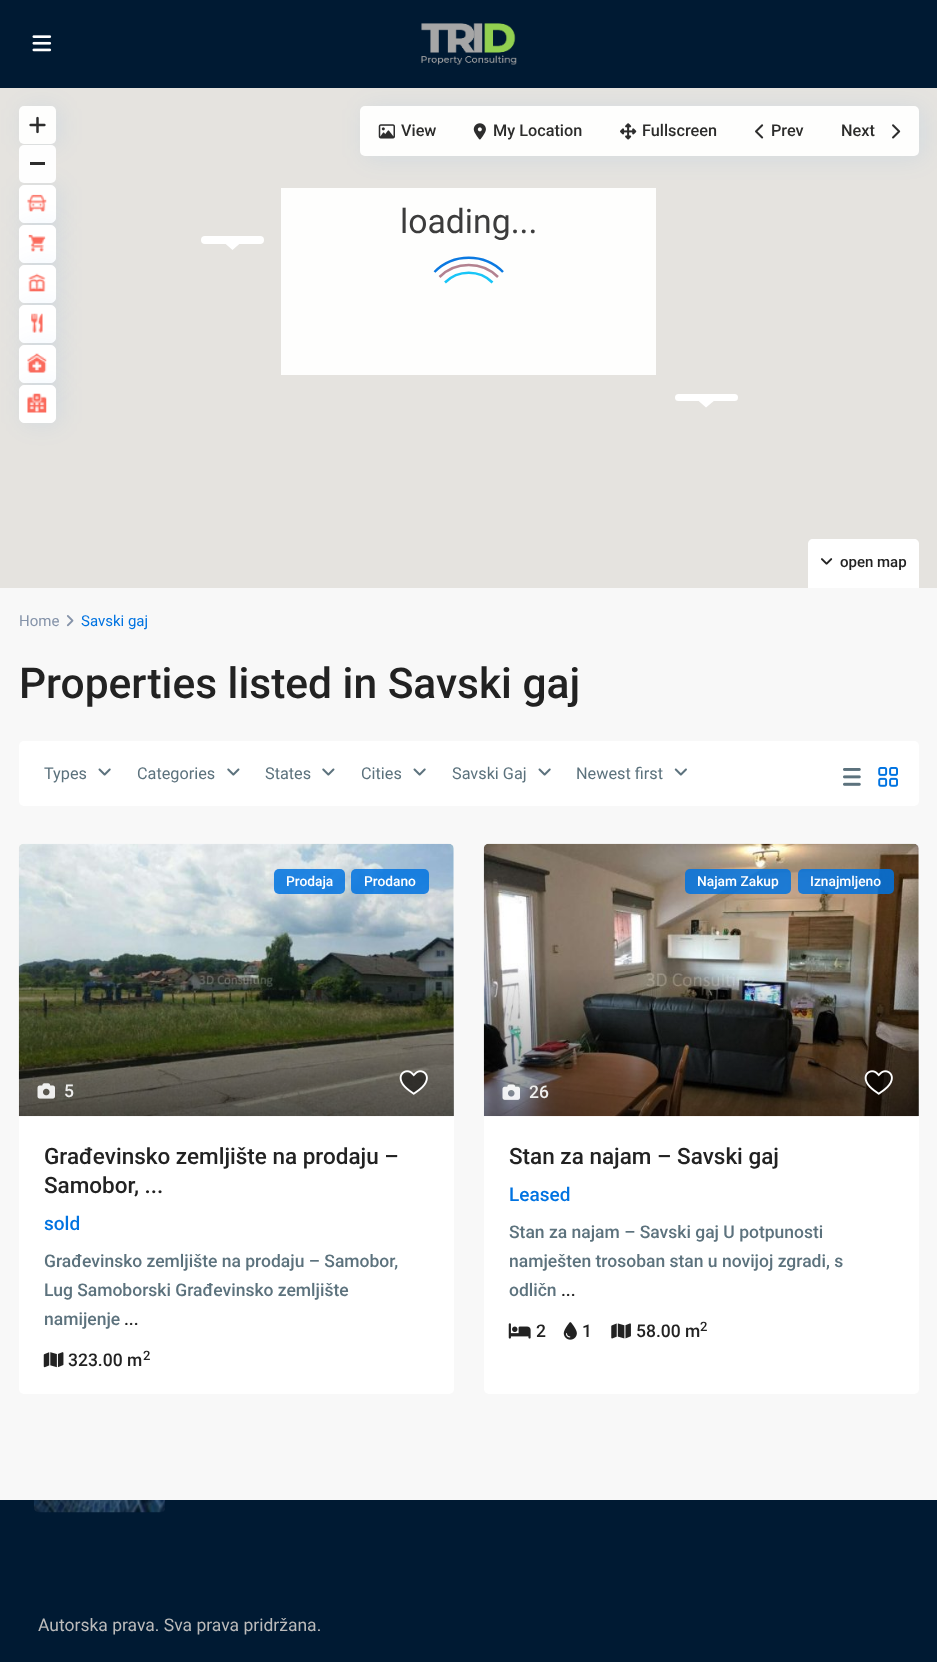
<?xml version="1.0" encoding="UTF-8"?>
<svg xmlns="http://www.w3.org/2000/svg" xmlns:xlink="http://www.w3.org/1999/xlink" width="937" height="1662">
  <defs>
    <linearGradient id="g1" gradientUnits="userSpaceOnUse" x1="236" y1="1116" x2="236" y2="844"><stop offset="0" stop-color="#000000" stop-opacity="0.5" /><stop offset="0.56" stop-color="#000000" stop-opacity="0" /></linearGradient>
    <linearGradient id="g2" gradientUnits="userSpaceOnUse" x1="701" y1="1116" x2="701" y2="844"><stop offset="0" stop-color="#000000" stop-opacity="0.5" /><stop offset="0.56" stop-color="#000000" stop-opacity="0" /></linearGradient>
  </defs>
  <rect width="100%" height="100%" fill="#001a33" />
  <rect y="588" width="937" height="912" fill="#f8f8f8" />
  <image x="32" y="35" width="20" height="17" xlink:href="image1.png" />
  <image x="421" y="23" width="96" height="42" xlink:href="image2.png" />
  <rect y="88" width="937" height="500" fill="#e5e3df" />
  <rect x="201" y="236" width="63" height="8" rx="4" fill="#ffffff" />
  <path d="M 224 242.5 h 17 l -8.5 7.5 z" fill="#ffffff" />
  <rect x="675" y="394" width="63" height="7" rx="3.5" fill="#ffffff" />
  <path d="M 697.5 400 h 17.5 l -9 7.5 z" fill="#ffffff" />
  <rect x="23" y="108" width="37" height="37" rx="5" fill="#006ee1" fill-opacity="0.08" filter="blur(12.5px)" />
  <rect x="19" y="106" width="37" height="38" rx="5" fill="#fefefd" />
  <image x="29" y="116" width="17" height="18" xlink:href="image3.png" />
  <rect x="281" y="188" width="375" height="187" fill="#fefefd" />
  <rect x="364" y="108" width="559" height="50" rx="5" fill="#006ee1" fill-opacity="0.08" filter="blur(12.5px)" />
  <rect x="360" y="106" width="559" height="50" rx="5" fill="#fefefd" />
  <image x="378" y="124" width="17" height="15" xlink:href="image4.png" />
  <image x="473" y="123" width="13" height="17" xlink:href="image5.png" />
  <image x="620" y="123" width="17" height="17" xlink:href="image6.png" />
  <image x="755" y="124" width="9" height="15" xlink:href="image7.png" />
  <image x="892" y="124" width="9" height="15" xlink:href="image8.png" />
  <rect x="23" y="186" width="37" height="38" rx="5" fill="#006ee1" fill-opacity="0.08" filter="blur(12.5px)" />
  <rect x="19" y="145" width="37" height="38" rx="5" fill="#ffffff" fill-opacity="0.95" />
  <rect x="30" y="162" width="15" height="3" fill="#2d2d2d" />
  <rect x="19.5" y="185.5" width="36" height="37" rx="4.5" fill="#ffffff" stroke="#ffffff" />
  <image x="27" y="194" width="20" height="18" xlink:href="image9.png" />
  <rect x="23" y="226" width="37" height="38" rx="5" fill="#006ee1" fill-opacity="0.08" filter="blur(12.5px)" />
  <rect x="19.5" y="225.5" width="36" height="37" rx="4.5" fill="#ffffff" stroke="#ffffff" />
  <image x="28" y="234" width="18" height="18" xlink:href="image10.png" />
  <rect x="23" y="266" width="37" height="38" rx="5" fill="#006ee1" fill-opacity="0.08" filter="blur(12.5px)" />
  <rect x="19.5" y="265.5" width="36" height="37" rx="4.5" fill="#ffffff" stroke="#ffffff" />
  <image x="28" y="273" width="18" height="19" xlink:href="image11.png" />
  <rect x="23" y="306" width="37" height="38" rx="5" fill="#006ee1" fill-opacity="0.08" filter="blur(12.5px)" />
  <rect x="19.5" y="305.5" width="36" height="37" rx="4.5" fill="#ffffff" stroke="#ffffff" />
  <image x="31" y="313" width="12" height="20" xlink:href="image12.png" />
  <rect x="23" y="346" width="37" height="38" rx="5" fill="#006ee1" fill-opacity="0.08" filter="blur(12.5px)" />
  <rect x="19.5" y="345.5" width="36" height="37" rx="4.5" fill="#ffffff" stroke="#ffffff" />
  <image x="27" y="353" width="20" height="20" xlink:href="image13.png" />
  <rect x="23" y="386" width="37" height="38" rx="5" fill="#006ee1" fill-opacity="0.08" filter="blur(12.5px)" />
  <rect x="19.5" y="385.5" width="36" height="37" rx="4.5" fill="#ffffff" stroke="#ffffff" />
  <image x="27" y="393" width="20" height="20" xlink:href="image14.png" />
  <path d="M 813 539 h 101 c 3 0 5 2 5 5 v 44 h -111 v -44 c 0 -3 2 -5 5 -5 z" fill="#ffffff" />
  <image x="821" y="558" width="12" height="7" xlink:href="image15.png" />
  <path d="M 434.5 272 c 18.5 -19 50 -19 68.5 0" fill="none" stroke="#0b79e1" stroke-width="2.5" />
  <path d="M 439.5 277 c 16 -16 42.5 -16 58.5 0" fill="none" stroke="#b38290" stroke-width="2.5" />
  <path d="M 445 282.5 c 13 -13 34.5 -13 47.5 0" fill="none" stroke="#18c5f7" stroke-width="2.5" />
  <image x="66" y="615" width="8" height="12" xlink:href="image16.png" />
  <rect x="19" y="741" width="900" height="65" rx="5" fill="#ffffff" />
  <image x="98" y="768" width="13" height="8" xlink:href="image17.png" />
  <image x="227" y="768" width="13" height="8" xlink:href="image18.png" />
  <image x="322" y="768" width="13" height="8" xlink:href="image18.png" />
  <image x="413" y="768" width="13" height="8" xlink:href="image17.png" />
  <image x="538" y="768" width="13" height="8" xlink:href="image17.png" />
  <image x="674" y="768" width="13" height="8" xlink:href="image19.png" />
  <image x="843" y="768" width="18" height="18" xlink:href="image20.png" />
  <image x="878" y="767" width="20" height="20" xlink:href="image21.png" />
  <rect x="19" y="844" width="435" height="550" rx="5" fill="#ffffff" />
  <image x="18" y="843" width="436" height="274" xlink:href="image22.png" />
  <rect x="274" y="869" width="71" height="25" rx="5" fill="#0073e1" fill-opacity="0.85" />
  <rect x="351" y="869" width="78" height="25" rx="5" fill="#0073e1" fill-opacity="0.85" />
  <rect x="19" y="970" width="435" height="146" fill="url(#g1)" />
  <image x="37" y="1083" width="18" height="16" xlink:href="image23.png" />
  <image x="399" y="1070" width="29" height="25" xlink:href="image24.png" />
  <image x="43" y="1352" width="21" height="16" xlink:href="image25.png" />
  <rect x="484" y="844" width="435" height="550" rx="5" fill="#ffffff" />
  <image x="483" y="843" width="436" height="274" xlink:href="image26.png" />
  <rect x="685" y="869" width="106" height="25" rx="5" fill="#0073e1" fill-opacity="0.85" />
  <rect x="798" y="869" width="96" height="25" rx="5" fill="#0073e1" fill-opacity="0.85" />
  <rect x="484" y="970" width="435" height="146" fill="url(#g2)" />
  <image x="502" y="1084" width="18" height="16" xlink:href="image27.png" />
  <image x="864" y="1070" width="29" height="25" xlink:href="image28.png" />
  <image x="508" y="1323" width="23" height="16" xlink:href="image29.png" />
  <image x="563" y="1322" width="14" height="18" xlink:href="image30.png" />
  <image x="611" y="1323" width="20" height="16" xlink:href="image31.png" />
  <image x="33" y="1500" width="133" height="13" xlink:href="image32.png" />
  <text x="401" y="136" style="font-family: Roboto; font-size: 16.25px; font-weight: 500; fill: #2c2c2b">View</text>
  <text x="493" y="136" style="font-family: Roboto; font-size: 16.25px; font-weight: 500; fill: #2c2c2b">My Location</text>
  <text x="642" y="136" style="font-family: Roboto; font-size: 16.25px; font-weight: 500; fill: #2c2c2b">Fullscreen</text>
  <text x="771" y="136" style="font-family: Roboto; font-size: 16.25px; font-weight: 500; fill: #2c2c2b">Prev</text>
  <text x="841" y="136" style="font-family: Roboto; font-size: 16.25px; font-weight: 500; fill: #2c2c2b">Next</text>
  <text x="840" y="567" style="font-family: Roboto; font-size: 15px; font-weight: 500; fill: #222222">open map</text>
  <text x="400" y="233" style="font-family: Roboto; font-size: 33.75px; fill: #3c3c3c">loading...</text>
  <text x="19" y="626" style="font-family: Roboto; font-size: 15px; fill: #8593a9">Home</text>
  <text x="81" y="626" style="font-family: Roboto; font-size: 15px; fill: #0073e1">Savski gaj</text>
  <text x="19" y="698" style="font-family: Roboto; font-size: 42.5px; font-weight: 500; fill: #222222">Properties listed in Savski gaj</text>
  <text x="44" y="779" style="font-family: Roboto; font-size: 16.25px; fill: #5c727d">Types</text>
  <text x="137" y="779" style="font-family: Roboto; font-size: 16.25px; fill: #5c727d">Categories</text>
  <text x="265" y="779" style="font-family: Roboto; font-size: 16.25px; fill: #5c727d">States</text>
  <text x="361" y="779" style="font-family: Roboto; font-size: 16.25px; fill: #5c727d">Cities</text>
  <text x="452" y="779" style="font-family: Roboto; font-size: 16.25px; fill: #5c727d">Savski Gaj</text>
  <text x="576" y="779" style="font-family: Roboto; font-size: 16.25px; fill: #5c727d">Newest first</text>
  <text x="286" y="886" style="font-family: Roboto; font-size: 13.75px; font-weight: 500; fill: #ffffff">Prodaja</text>
  <text x="364" y="886" style="font-family: Roboto; font-size: 13.75px; font-weight: 500; fill: #ffffff">Prodano</text>
  <text x="64" y="1097" style="font-family: Roboto; font-size: 17.5px; font-weight: 500; fill: #eeeeed">5</text>
  <text x="44" y="1164" style="font-family: Roboto; font-size: 22.5px; font-weight: 500; fill: #222222">Građevinsko zemljište na prodaju –</text>
  <text x="44" y="1193" style="font-family: Roboto; font-size: 22.5px; font-weight: 500; fill: #222222">Samobor, ...</text>
  <text x="44" y="1230" style="font-family: Roboto; font-size: 19px; font-weight: 500; fill: #0073e1">sold</text>
  <text x="44" y="1267" style="font-family: Roboto; font-size: 17.5px; font-weight: 500; fill: #5c727d">Građevinsko zemljište na prodaju – Samobor,</text>
  <text x="44" y="1296" style="font-family: Roboto; font-size: 17.5px; font-weight: 500; fill: #5c727d">Lug Samoborski Građevinsko zemljište</text>
  <text x="44" y="1325" style="font-family: Roboto; font-size: 17.5px; font-weight: 500; fill: #5c727d">namijenje</text>
  <text x="124" y="1325" style="font-family: Roboto; font-size: 17.5px; font-weight: 500; fill: #222222">...</text>
  <text x="68" y="1366" style="font-family: Roboto; font-size: 17.5px; font-weight: 500; fill: #222222">323.00 m</text>
  <text x="143" y="1360" style="font-family: Roboto; font-size: 13px; font-weight: 500; fill: #222222">2</text>
  <text x="697" y="886" style="font-family: Roboto; font-size: 13.75px; font-weight: 500; fill: #ffffff">Najam Zakup</text>
  <text x="810" y="886" style="font-family: Roboto; font-size: 13.75px; font-weight: 500; fill: #ffffff">Iznajmljeno</text>
  <text x="529" y="1098" style="font-family: Roboto; font-size: 17.5px; font-weight: 500; fill: #eeeeed">26</text>
  <text x="509" y="1164" style="font-family: Roboto; font-size: 22.5px; font-weight: 500; fill: #222222">Stan za najam – Savski gaj</text>
  <text x="509" y="1201" style="font-family: Roboto; font-size: 19px; font-weight: 500; fill: #0073e1">Leased</text>
  <text x="509" y="1238" style="font-family: Roboto; font-size: 17.5px; font-weight: 500; fill: #5c727d">Stan za najam – Savski gaj U potpunosti</text>
  <text x="509" y="1267" style="font-family: Roboto; font-size: 17.5px; font-weight: 500; fill: #5c727d">namješten trosoban stan u novijoj zgradi, s</text>
  <text x="509" y="1296" style="font-family: Roboto; font-size: 17.5px; font-weight: 500; fill: #5c727d">odličn</text>
  <text x="561" y="1296" style="font-family: Roboto; font-size: 17.5px; font-weight: 500; fill: #222222">...</text>
  <text x="536" y="1337" style="font-family: Roboto; font-size: 17.5px; font-weight: 500; fill: #222222">2</text>
  <text x="582" y="1337" style="font-family: Roboto; font-size: 17.5px; font-weight: 500; fill: #222222">1</text>
  <text x="636" y="1337" style="font-family: Roboto; font-size: 17.5px; font-weight: 500; fill: #222222">58.00 m</text>
  <text x="700" y="1331" style="font-family: Roboto; font-size: 13px; font-weight: 500; fill: #222222">2</text>
  <text x="38" y="1631" style="font-family: Roboto; font-size: 17.5px; fill: #bbbbbb">Autorska prava. Sva prava pridržana.</text>
</svg>
